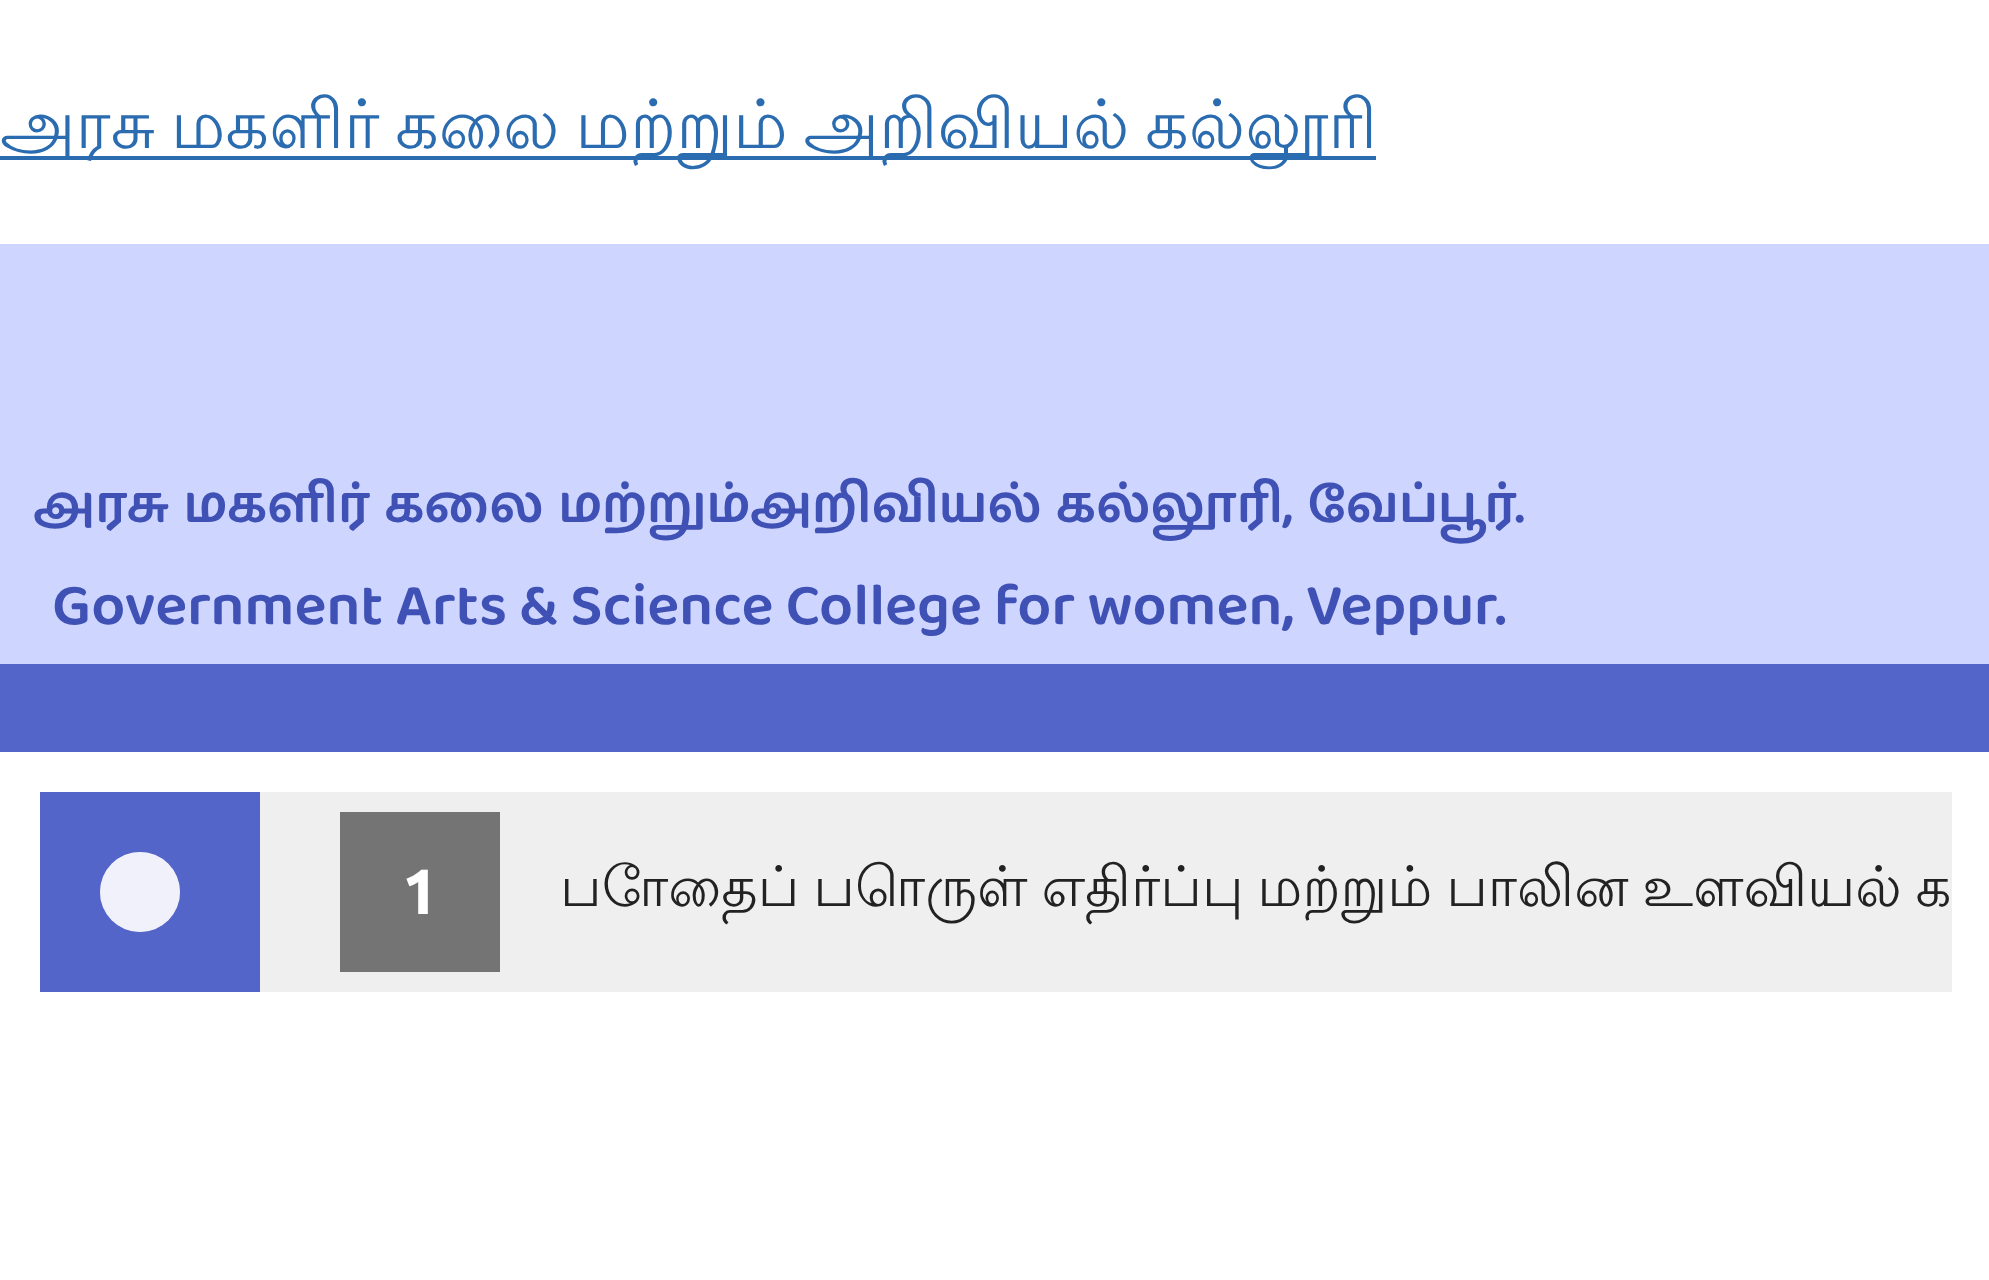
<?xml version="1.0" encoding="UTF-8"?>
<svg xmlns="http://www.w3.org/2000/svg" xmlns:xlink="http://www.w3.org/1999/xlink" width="1989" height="1280">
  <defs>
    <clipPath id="clip1"><rect x="280" y="792" width="1672" height="200" /></clipPath>
  </defs>
  <rect width="100%" height="100%" fill="#ffffff" />
  <rect y="156" width="1376" height="4" fill="#2b6cb0" />
  <rect y="244" width="1989" height="420" fill="#ced6ff" />
  <rect y="664" width="1989" height="88" fill="#5365c8" />
  <rect x="260" y="792" width="1692" height="200" fill="#efefef" />
  <rect x="40" y="792" width="220" height="200" fill="#5365c8" />
  <circle cx="140" cy="892" r="40" fill="#cbd1ef" />
  <circle cx="140" cy="892" r="40" fill="#ffffff" fill-opacity="0.7" />
  <rect x="340" y="812" width="160" height="160" fill="#747474" />
  <text x="0" y="148" word-spacing="-4.75" style="font-family: Lohit Tamil; font-size: 68px; fill: #2b6cb0">அரசு மகளிர் கலை மற்றும் அறிவியல் கல்லூரி</text>
  <text x="33" y="522" style="font-family: 'Baloo Thambi 2'; font-size: 52px; font-weight: 600; fill: #3f51b5">அரசு மகளிர் கலை மற்றும்அறிவியல் கல்லூரி, வேப்பூர்.</text>
  <text x="52" y="624" style="font-family: 'Baloo 2'; font-size: 60px; font-weight: 600; fill: #3f51b5">Government Arts &amp; Science College for women, Veppur.</text>
  <text x="402" y="914" style="font-family: Ubuntu; font-size: 64px; font-weight: bold; fill: #ffffff">1</text>
  <g clip-path="url(#clip1)">
    <text x="560" y="906" word-spacing="-3" style="font-family: Lohit Tamil; font-size: 56px; fill: #222222">போதைப் பொருள் எதிர்ப்பு மற்றும் பாலின உளவியல் க</text>
  </g>
</svg>
